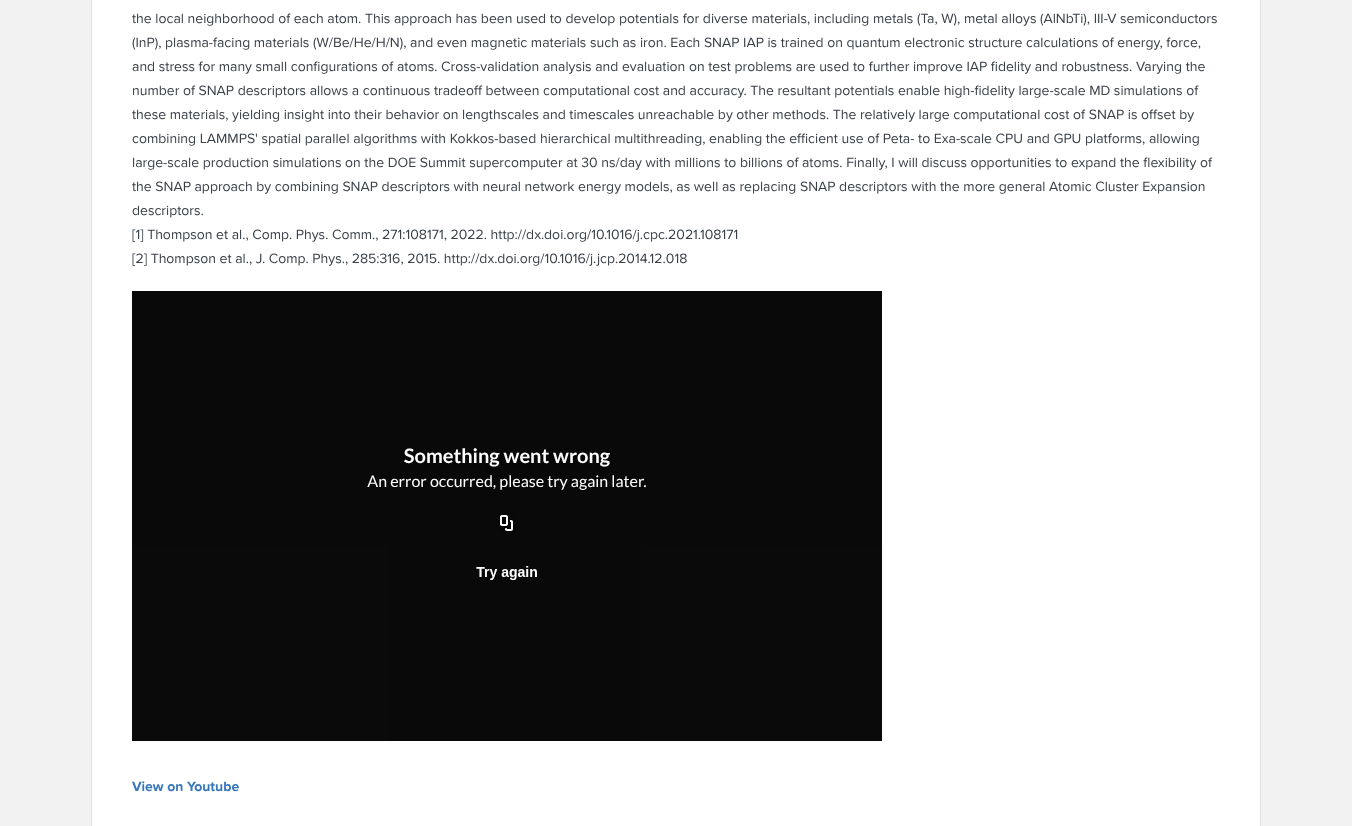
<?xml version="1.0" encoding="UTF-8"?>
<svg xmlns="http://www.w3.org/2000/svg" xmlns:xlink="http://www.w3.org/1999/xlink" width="1352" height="826">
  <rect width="100%" height="100%" fill="#f2f2f2" />
  <rect x="91.5" y="-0.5" width="1169" height="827" fill="#ffffff" stroke="#dfdfdf" />
  <image x="132" y="291" width="750" height="450" xlink:href="image1.png" />
  <text x="132" y="23" style="font-family: Proxima Nova; font-size: 14px; fill: #3a4048">the local neighborhood of each atom. This approach has been used to develop potentials for diverse materials, including metals (Ta, W), metal alloys (AlNbTi), III-V semiconductors</text>
  <text x="132" y="47" style="font-family: Proxima Nova; font-size: 14px; fill: #3a4048">(InP), plasma-facing materials (W/Be/He/H/N), and even magnetic materials such as iron. Each SNAP IAP is trained on quantum electronic structure calculations of energy, force,</text>
  <text x="132" y="71" style="font-family: Proxima Nova; font-size: 14px; fill: #3a4048">and stress for many small configurations of atoms. Cross-validation analysis and evaluation on test problems are used to further improve IAP fidelity and robustness. Varying the</text>
  <text x="132" y="95" style="font-family: Proxima Nova; font-size: 14px; fill: #3a4048">number of SNAP descriptors allows a continuous tradeoff between computational cost and accuracy. The resultant potentials enable high-fidelity large-scale MD simulations of</text>
  <text x="132" y="119" style="font-family: Proxima Nova; font-size: 14px; fill: #3a4048">these materials, yielding insight into their behavior on lengthscales and timescales unreachable by other methods. The relatively large computational cost of SNAP is offset by</text>
  <text x="132" y="143" style="font-family: Proxima Nova; font-size: 14px; fill: #3a4048">combining LAMMPS' spatial parallel algorithms with Kokkos-based hierarchical multithreading, enabling the efficient use of Peta- to Exa-scale CPU and GPU platforms, allowing</text>
  <text x="132" y="167" style="font-family: Proxima Nova; font-size: 14px; fill: #3a4048">large-scale production simulations on the DOE Summit supercomputer at 30 ns/day with millions to billions of atoms. Finally, I will discuss opportunities to expand the flexibility of</text>
  <text x="132" y="191" style="font-family: Proxima Nova; font-size: 14px; fill: #3a4048">the SNAP approach by combining SNAP descriptors with neural network energy models, as well as replacing SNAP descriptors with the more general Atomic Cluster Expansion</text>
  <text x="132" y="215" style="font-family: Proxima Nova; font-size: 14px; fill: #3a4048">descriptors.</text>
  <text x="132" y="239" style="font-family: Proxima Nova; font-size: 14px; fill: #3a4048">[1] Thompson et al., Comp. Phys. Comm., 271:108171, 2022. http://dx.doi.org/10.1016/j.cpc.2021.108171</text>
  <text x="132" y="263" style="font-family: Proxima Nova; font-size: 14px; fill: #3a4048">[2] Thompson et al., J. Comp. Phys., 285:316, 2015. http://dx.doi.org/10.1016/j.jcp.2014.12.018</text>
  <text x="132" y="791" style="font-family: Proxima Nova; font-size: 14px; font-weight: bold; fill: #3777bb">View on Youtube</text>
</svg>
